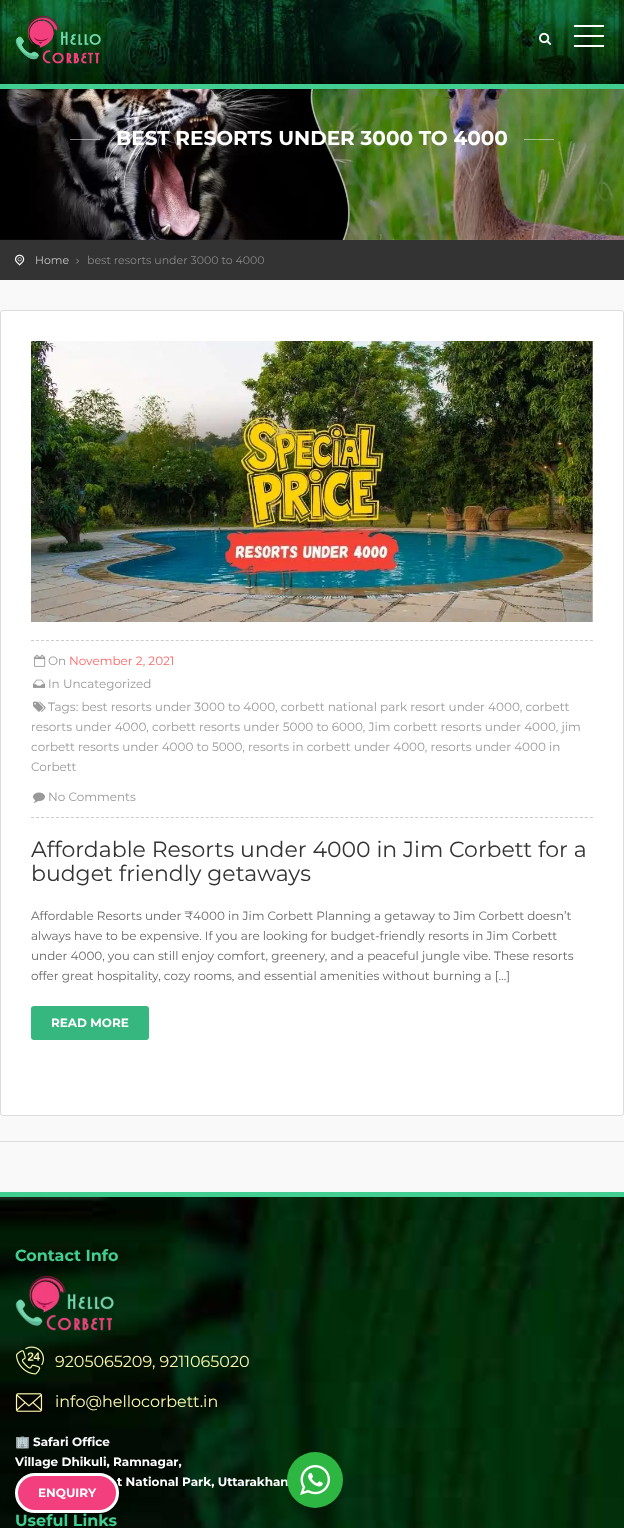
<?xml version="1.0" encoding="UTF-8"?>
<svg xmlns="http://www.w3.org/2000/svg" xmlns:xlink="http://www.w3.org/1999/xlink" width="624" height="1528">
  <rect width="100%" height="100%" fill="#f9f9f9" />
  <image x="0" y="0" width="624" height="84" xlink:href="image1.png" />
  <rect y="84" width="624" height="5" fill="#42ce91" />
  <image x="15" y="15" width="86" height="49" xlink:href="image2.png" />
  <image x="539" y="32" width="12" height="13" xlink:href="image3.png" />
  <rect x="574" y="35" width="30" height="2" fill="#ffffff" />
  <rect x="574" y="25" width="30" height="2" fill="#ffffff" />
  <rect x="574" y="45" width="30" height="2" fill="#ffffff" />
  <image x="0" y="89" width="624" height="151" xlink:href="image4.png" />
  <rect x="70" y="139" width="30" height="1" fill="#ffffff" fill-opacity="0.5" />
  <rect x="524" y="139" width="30" height="1" fill="#ffffff" fill-opacity="0.5" />
  <rect y="240" width="624" height="40" fill="#333333" />
  <image x="15" y="254" width="10" height="12" xlink:href="image5.png" />
  <image x="76" y="258" width="3" height="6" xlink:href="image6.png" />
  <rect x="0.5" y="310.5" width="623" height="805" rx="2.5" fill="#ffffff" stroke="#dddddd" />
  <image x="31" y="341" width="562" height="281" xlink:href="image7.png" />
  <path d="M 31 640.5 h 562" fill="none" stroke="#cccccc" stroke-dasharray="3 1.99" />
  <path d="M 31 817.5 h 562" fill="none" stroke="#cccccc" stroke-dasharray="3 1.99" />
  <image x="34" y="654" width="12" height="13" xlink:href="image8.png" />
  <image x="33" y="679" width="12" height="9" xlink:href="image9.png" />
  <image x="33" y="701" width="13" height="11" xlink:href="image10.png" />
  <image x="33" y="792" width="12" height="11" xlink:href="image11.png" />
  <rect x="31" y="1006" width="118" height="34" rx="3" fill="#36b77f" />
  <rect y="1141" width="624" height="1" fill="#dddddd" />
  <image x="0" y="1197" width="624" height="331" xlink:href="image12.png" />
  <rect y="1192" width="624" height="5" fill="#42ce91" />
  <image x="15" y="1275" width="99" height="56" xlink:href="image13.png" />
  <image x="16" y="1346" width="28" height="29" xlink:href="image14.png" />
  <image x="15" y="1393" width="28" height="19" xlink:href="image15.png" />
  <rect x="285" y="1456" width="60" height="60" rx="30" fill="#000000" fill-opacity="0.14" filter="blur(4px)" />
  <rect x="17" y="1479" width="104" height="40" rx="20" fill="#000000" fill-opacity="0.2" filter="blur(5.5px)" />
  <text x="116" y="145" style="font-family: Montserrat; font-size: 20px; font-weight: bold; fill: #ffffff">BEST RESORTS UNDER 3000 TO 4000</text>
  <text x="35" y="264" style="font-family: Montserrat; font-size: 11px; fill: #c2c2c2">Home</text>
  <text x="87" y="264" style="font-family: Montserrat; font-size: 11px; fill: #888888">best resorts under 3000 to 4000</text>
  <text x="48" y="665" style="font-family: Montserrat; font-size: 12px; fill: #999999">On</text>
  <text x="69" y="665" style="font-family: Montserrat; font-size: 12px; fill: #ff6666">November 2, 2021</text>
  <text x="48" y="688" style="font-family: Montserrat; font-size: 12px; fill: #999999">In Uncategorized</text>
  <text x="48" y="711" style="font-family: Montserrat; font-size: 12px; fill: #999999">Tags: best resorts under 3000 to 4000, corbett national park resort under 4000, corbett</text>
  <text x="31" y="731" style="font-family: Montserrat; font-size: 12px; fill: #999999">resorts under 4000, corbett resorts under 5000 to 6000, Jim corbett resorts under 4000, jim</text>
  <text x="31" y="751" style="font-family: Montserrat; font-size: 12px; fill: #999999">corbett resorts under 4000 to 5000, resorts in corbett under 4000, resorts under 4000 in</text>
  <text x="31" y="771" style="font-family: Montserrat; font-size: 12px; fill: #999999">Corbett</text>
  <text x="48" y="801" style="font-family: Montserrat; font-size: 12px; fill: #999999">No Comments</text>
  <text x="31" y="857" style="font-family: Montserrat; font-size: 22px; fill: #333333">Affordable Resorts under 4000 in Jim Corbett for a</text>
  <text x="31" y="881" style="font-family: Montserrat; font-size: 22px; fill: #333333">budget friendly getaways</text>
  <text x="31" y="920" style="font-family: Montserrat; font-size: 12px; fill: #666666">Affordable Resorts under ₹4000 in Jim Corbett Planning a getaway to Jim Corbett doesn’t</text>
  <text x="31" y="940" style="font-family: Montserrat; font-size: 12px; fill: #666666">always have to be expensive. If you are looking for budget-friendly resorts in Jim Corbett</text>
  <text x="31" y="960" style="font-family: Montserrat; font-size: 12px; fill: #666666">under 4000, you can still enjoy comfort, greenery, and a peaceful jungle vibe. These resorts</text>
  <text x="31" y="980" style="font-family: Montserrat; font-size: 12px; fill: #666666">offer great hospitality, cozy rooms, and essential amenities without burning a […]</text>
  <text x="51" y="1027" style="font-family: Montserrat; font-size: 12px; font-weight: bold; fill: #ffffff">READ MORE</text>
  <text x="15" y="1261" style="font-family: Montserrat; font-size: 16px; font-weight: bold; fill: #42ce91">Contact Info</text>
  <text x="55" y="1367" style="font-family: Montserrat; font-size: 16px; fill: #fdf7ac">9205065209, 9211065020</text>
  <text x="55" y="1407" style="font-family: Montserrat; font-size: 16px; fill: #fdf7ac">info@hellocorbett.in</text>
  <text x="15" y="1446" style="font-family: Noto Color Emoji; font-size: 12px; font-weight: bold; fill: #ffffff">🏢</text>
  <text x="33" y="1446" style="font-family: Montserrat; font-size: 12px; font-weight: bold; fill: #ffffff">Safari Office</text>
  <text x="15" y="1466" style="font-family: Montserrat; font-size: 12px; font-weight: bold; fill: #ffffff">Village Dhikuli, Ramnagar,</text>
  <text x="117" y="1486" style="font-family: Montserrat; font-size: 12px; font-weight: bold; fill: #ffffff">t National Park, Uttarakhan</text>
  <text x="15" y="1526" style="font-family: Montserrat; font-size: 16px; font-weight: bold; fill: #42ce91">Useful Links</text>
  <circle cx="315" cy="1480" r="28" fill="#2db742" />
  <image x="300" y="1465" width="30" height="30" xlink:href="image16.png" />
  <rect x="16.5" y="1474.5" width="101" height="37" rx="18.5" fill="#f33f7e" stroke="#ffffff" stroke-width="3" />
  <text x="38" y="1497" style="font-family: Montserrat; font-size: 12px; font-weight: bold; fill: #ffffff">ENQUIRY</text>
</svg>
